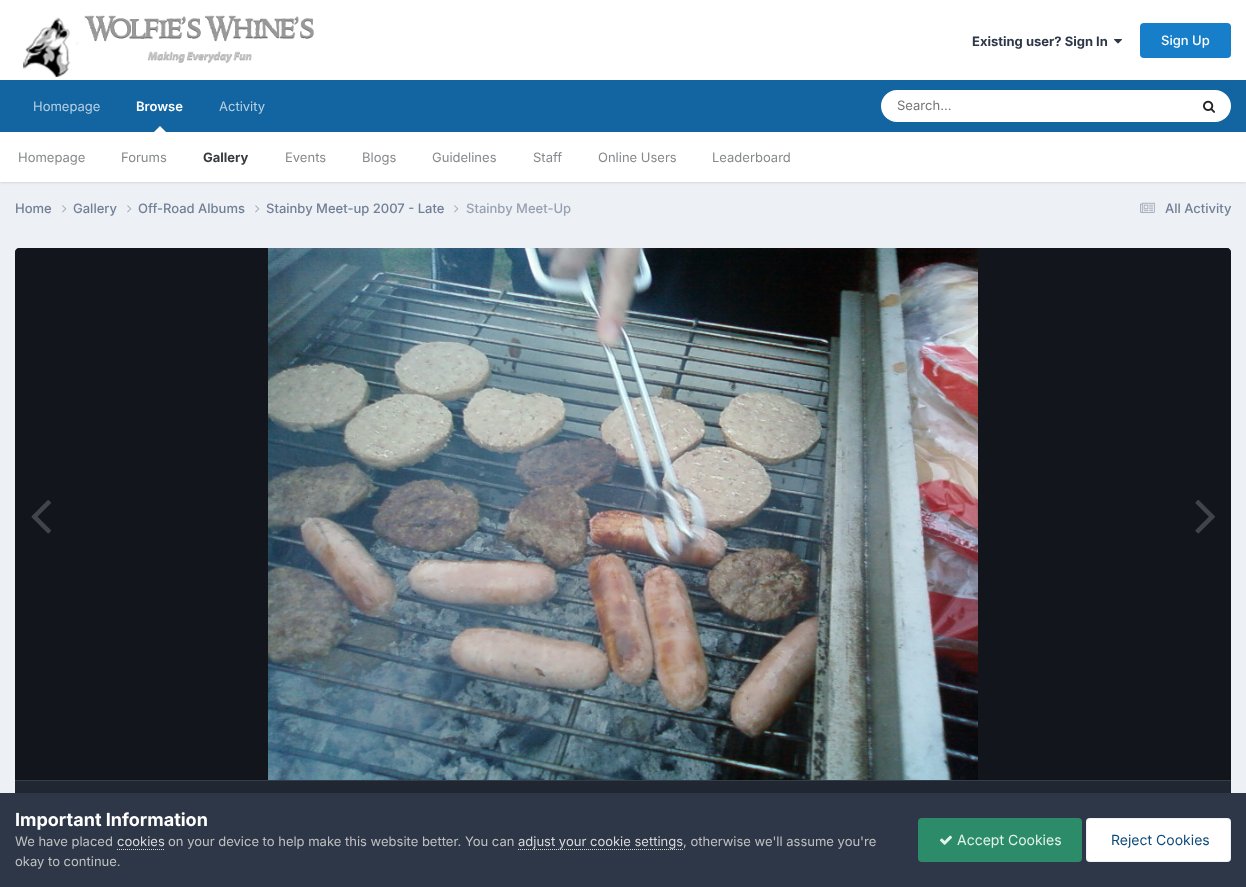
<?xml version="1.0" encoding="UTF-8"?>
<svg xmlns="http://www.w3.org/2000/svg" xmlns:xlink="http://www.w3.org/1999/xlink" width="1246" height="887">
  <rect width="100%" height="100%" fill="#edf0f4" />
  <rect width="1246" height="80" fill="#ffffff" />
  <image x="23" y="15" width="291" height="62" xlink:href="image1.png" />
  <image x="1114" y="39" width="8" height="5" xlink:href="image2.png" />
  <rect x="1140" y="23" width="91" height="35" rx="4" fill="#177ec9" />
  <rect y="80" width="1246" height="52" fill="#1265a1" />
  <rect y="133" width="1246" height="50" fill="#000000" fill-opacity="0.1" filter="blur(1px)" />
  <path d="M 166 132 h -12 l 6 -6 z" fill="#ffffff" />
  <rect x="881" y="90" width="350" height="32" rx="16" fill="#ffffff" />
  <image x="1203" y="100" width="12" height="13" xlink:href="image3.png" />
  <rect y="132" width="1246" height="50" fill="#ffffff" />
  <image x="62" y="205" width="5" height="8" xlink:href="image4.png" />
  <image x="127" y="205" width="5" height="8" xlink:href="image4.png" />
  <image x="255" y="205" width="5" height="8" xlink:href="image4.png" />
  <image x="454" y="205" width="5" height="8" xlink:href="image4.png" />
  <image x="1140" y="202" width="15" height="11" xlink:href="image5.png" />
  <path d="M 19 248 h 1208 c 2 0 4 2 4 4 v 528 h -1216 v -528 c 0 -2 2 -4 4 -4 z" fill="#2d3748" />
  <path d="M 19 248 h 1208 c 2 0 4 2 4 4 v 528 h -1216 v -528 c 0 -2 2 -4 4 -4 z" fill="#000000" fill-opacity="0.6" />
  <image x="268" y="248" width="710" height="532" xlink:href="image6.png" />
  <image x="31" y="500" width="20" height="34" xlink:href="image7.png" />
  <image x="1195" y="500" width="20" height="34" xlink:href="image8.png" />
  <rect x="15" y="781" width="1216" height="12" fill="#202732" />
  <rect x="15" y="780" width="1216" height="1" fill="#363d47" />
  <rect y="793" width="1246" height="94" fill="#2d3748" />
  <path d="M 117 849.5 h 47" fill="none" stroke="#dadada" stroke-dasharray="1 1" />
  <path d="M 518 849.5 h 165" fill="none" stroke="#dadada" stroke-dasharray="1 1" />
  <rect x="918" y="818" width="164" height="44" rx="4" fill="#2c8c69" />
  <image x="940" y="835" width="12" height="10" xlink:href="image9.png" />
  <rect x="1086" y="818" width="145" height="44" rx="4" fill="#ffffff" />
  <rect x="1086.5" y="818.5" width="144" height="43" rx="3.5" fill="none" stroke="#0e4c79" stroke-opacity="0.07" />
  <text x="972" y="46" style="font-family: Inter; font-size: 13px; font-weight: bold; fill: #2d3748">Existing user? Sign In</text>
  <text x="1161" y="45" style="font-family: Inter; font-size: 13px; font-weight: 500; fill: #ffffff">Sign Up</text>
  <text x="136" y="111" style="font-family: Inter; font-size: 13px; font-weight: 600; fill: #ffffff">Browse</text>
  <text x="18" y="162" style="font-family: Inter; font-size: 13px; fill: #868a8d">Homepage</text>
  <text x="121" y="162" style="font-family: Inter; font-size: 13px; fill: #868a8d">Forums</text>
  <text x="203" y="162" style="font-family: Inter; font-size: 13px; font-weight: bold; fill: #353c41">Gallery</text>
  <text x="285" y="162" style="font-family: Inter; font-size: 13px; fill: #868a8d">Events</text>
  <text x="362" y="162" style="font-family: Inter; font-size: 13px; fill: #868a8d">Blogs</text>
  <text x="432" y="162" style="font-family: Inter; font-size: 13px; fill: #868a8d">Guidelines</text>
  <text x="533" y="162" style="font-family: Inter; font-size: 13px; fill: #868a8d">Staff</text>
  <text x="598" y="162" style="font-family: Inter; font-size: 13px; fill: #868a8d">Online Users</text>
  <text x="712" y="162" style="font-family: Inter; font-size: 13px; fill: #868a8d">Leaderboard</text>
  <text x="33" y="111" style="font-family: Inter; font-size: 13px; fill: #b8d1e3">Homepage</text>
  <text x="219" y="111" style="font-family: Inter; font-size: 13px; fill: #b8d1e3">Activity</text>
  <text x="897" y="110" style="font-family: Inter; font-size: 13px; fill: #757575">Search...</text>
  <text x="15" y="213" style="font-family: Inter; font-size: 13px; font-weight: 500; fill: #718096">Home</text>
  <text x="73" y="213" style="font-family: Inter; font-size: 13px; font-weight: 500; fill: #718096">Gallery</text>
  <text x="138" y="213" style="font-family: Inter; font-size: 13px; font-weight: 500; fill: #718096">Off-Road Albums</text>
  <text x="266" y="213" style="font-family: Inter; font-size: 13px; font-weight: 500; fill: #718096">Stainby Meet-up 2007 - Late</text>
  <text x="466" y="213" style="font-family: Inter; font-size: 13px; font-weight: 500; fill: #96a2b2">Stainby Meet-Up</text>
  <text x="1165" y="213" style="font-family: Inter; font-size: 13px; font-weight: 500; fill: #718096">All Activity</text>
  <text x="15" y="826" style="font-family: Inter; font-size: 18px; font-weight: bold; fill: #ffffff">Important Information</text>
  <text x="15" y="846" style="font-family: Inter; font-size: 13px; fill: #c0c0c0">We have placed</text>
  <text x="117" y="846" style="font-family: Inter; font-size: 13px; fill: #dadada">cookies</text>
  <text x="168" y="846" style="font-family: Inter; font-size: 13px; fill: #c0c0c0">on your device to help make this website better. You can</text>
  <text x="518" y="846" style="font-family: Inter; font-size: 13px; fill: #dadada">adjust your cookie settings</text>
  <text x="683" y="846" style="font-family: Inter; font-size: 13px; fill: #c0c0c0">, otherwise we'll assume you're</text>
  <text x="15" y="866" style="font-family: Inter; font-size: 13px; fill: #c0c0c0">okay to continue.</text>
  <text x="957" y="845" style="font-family: Inter; font-size: 14px; fill: #e3f3ec">Accept Cookies</text>
  <text x="1111" y="845" style="font-family: Inter; font-size: 14px; fill: #0e4c79">Reject Cookies</text>
</svg>
